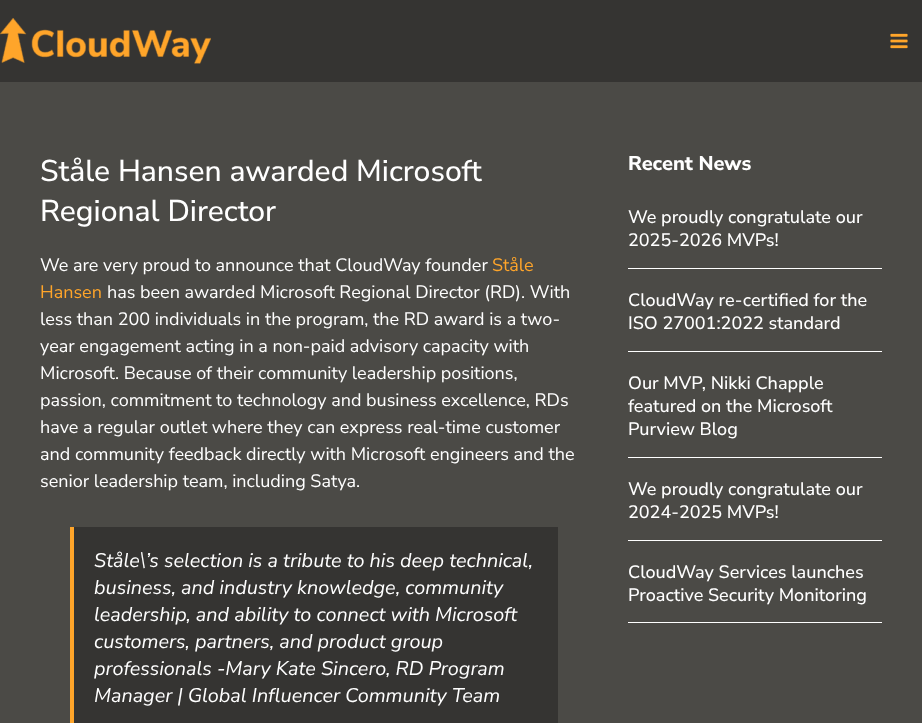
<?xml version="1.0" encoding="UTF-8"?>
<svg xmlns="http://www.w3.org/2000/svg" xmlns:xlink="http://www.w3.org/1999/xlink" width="922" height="723">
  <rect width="100%" height="100%" fill="#353432" />
  <image x="0" y="18" width="211" height="46" xlink:href="image1.png" />
  <image x="890" y="33" width="18" height="16" xlink:href="image2.png" />
  <rect y="82" width="922" height="641" fill="#4b4a46" />
  <rect x="74" y="527" width="484" height="196" fill="#353432" />
  <rect x="70" y="527" width="4" height="196" fill="#ffa52a" />
  <rect x="628" y="268" width="254" height="1" fill="#ffffff" />
  <rect x="628" y="351" width="254" height="1" fill="#ffffff" />
  <rect x="628" y="457" width="254" height="1" fill="#ffffff" />
  <rect x="628" y="540" width="254" height="1" fill="#ffffff" />
  <rect x="628" y="622" width="254" height="1" fill="#ffffff" />
  <text x="40" y="181" style="font-family: Nunito Sans; font-size: 30px; font-weight: 500; fill: #ffffff">Ståle Hansen awarded Microsoft</text>
  <text x="40" y="221" style="font-family: Nunito Sans; font-size: 30px; font-weight: 500; fill: #ffffff">Regional Director</text>
  <text x="40" y="271" style="font-family: Nunito Sans; font-size: 18px; fill: #ffffff">We are very proud to announce that CloudWay founder</text>
  <text x="492" y="271" style="font-family: Nunito Sans; font-size: 18px; fill: #ffa52a">Ståle</text>
  <text x="40" y="298" style="font-family: Nunito Sans; font-size: 18px; fill: #ffa52a">Hansen</text>
  <text x="107" y="298" style="font-family: Nunito Sans; font-size: 18px; fill: #ffffff">has been awarded Microsoft Regional Director (RD). With</text>
  <text x="40" y="325" style="font-family: Nunito Sans; font-size: 18px; fill: #ffffff">less than 200 individuals in the program, the RD award is a two-</text>
  <text x="40" y="352" style="font-family: Nunito Sans; font-size: 18px; fill: #ffffff">year engagement acting in a non-paid advisory capacity with</text>
  <text x="40" y="379" style="font-family: Nunito Sans; font-size: 18px; fill: #ffffff">Microsoft. Because of their community leadership positions,</text>
  <text x="40" y="406" style="font-family: Nunito Sans; font-size: 18px; fill: #ffffff">passion, commitment to technology and business excellence, RDs</text>
  <text x="40" y="433" style="font-family: Nunito Sans; font-size: 18px; fill: #ffffff">have a regular outlet where they can express real-time customer</text>
  <text x="40" y="460" style="font-family: Nunito Sans; font-size: 18px; fill: #ffffff">and community feedback directly with Microsoft engineers and the</text>
  <text x="40" y="487" style="font-family: Nunito Sans; font-size: 18px; fill: #ffffff">senior leadership team, including Satya.</text>
  <text x="94" y="567" style="font-family: Nunito Sans; font-size: 19.8px; font-style: italic; fill: #ffffff">Ståle\’s selection is a tribute to his deep technical,</text>
  <text x="94" y="594" style="font-family: Nunito Sans; font-size: 19.8px; font-style: italic; fill: #ffffff">business, and industry knowledge, community</text>
  <text x="94" y="621" style="font-family: Nunito Sans; font-size: 19.8px; font-style: italic; fill: #ffffff">leadership, and ability to connect with Microsoft</text>
  <text x="94" y="648" style="font-family: Nunito Sans; font-size: 19.8px; font-style: italic; fill: #ffffff">customers, partners, and product group</text>
  <text x="94" y="675" style="font-family: Nunito Sans; font-size: 19.8px; font-style: italic; fill: #ffffff">professionals -Mary Kate Sincero, RD Program</text>
  <text x="94" y="702" style="font-family: Nunito Sans; font-size: 19.8px; font-style: italic; fill: #ffffff">Manager | Global Influencer Community Team</text>
  <text x="628" y="170" style="font-family: Nunito Sans; font-size: 20px; font-weight: 800; fill: #ffffff">Recent News</text>
  <text x="628" y="223" style="font-family: Nunito Sans; font-size: 18px; font-weight: 500; fill: #ffffff">We proudly congratulate our</text>
  <text x="628" y="246" style="font-family: Nunito Sans; font-size: 18px; font-weight: 500; fill: #ffffff">2025-2026 MVPs!</text>
  <text x="628" y="306" style="font-family: Nunito Sans; font-size: 18px; font-weight: 500; fill: #ffffff">CloudWay re-certified for the</text>
  <text x="628" y="329" style="font-family: Nunito Sans; font-size: 18px; font-weight: 500; fill: #ffffff">ISO 27001:2022 standard</text>
  <text x="628" y="389" style="font-family: Nunito Sans; font-size: 18px; font-weight: 500; fill: #ffffff">Our MVP, Nikki Chapple</text>
  <text x="628" y="412" style="font-family: Nunito Sans; font-size: 18px; font-weight: 500; fill: #ffffff">featured on the Microsoft</text>
  <text x="628" y="435" style="font-family: Nunito Sans; font-size: 18px; font-weight: 500; fill: #ffffff">Purview Blog</text>
  <text x="628" y="495" style="font-family: Nunito Sans; font-size: 18px; font-weight: 500; fill: #ffffff">We proudly congratulate our</text>
  <text x="628" y="518" style="font-family: Nunito Sans; font-size: 18px; font-weight: 500; fill: #ffffff">2024-2025 MVPs!</text>
  <text x="628" y="578" style="font-family: Nunito Sans; font-size: 18px; font-weight: 500; fill: #ffffff">CloudWay Services launches</text>
  <text x="628" y="601" style="font-family: Nunito Sans; font-size: 18px; font-weight: 500; fill: #ffffff">Proactive Security Monitoring</text>
</svg>
